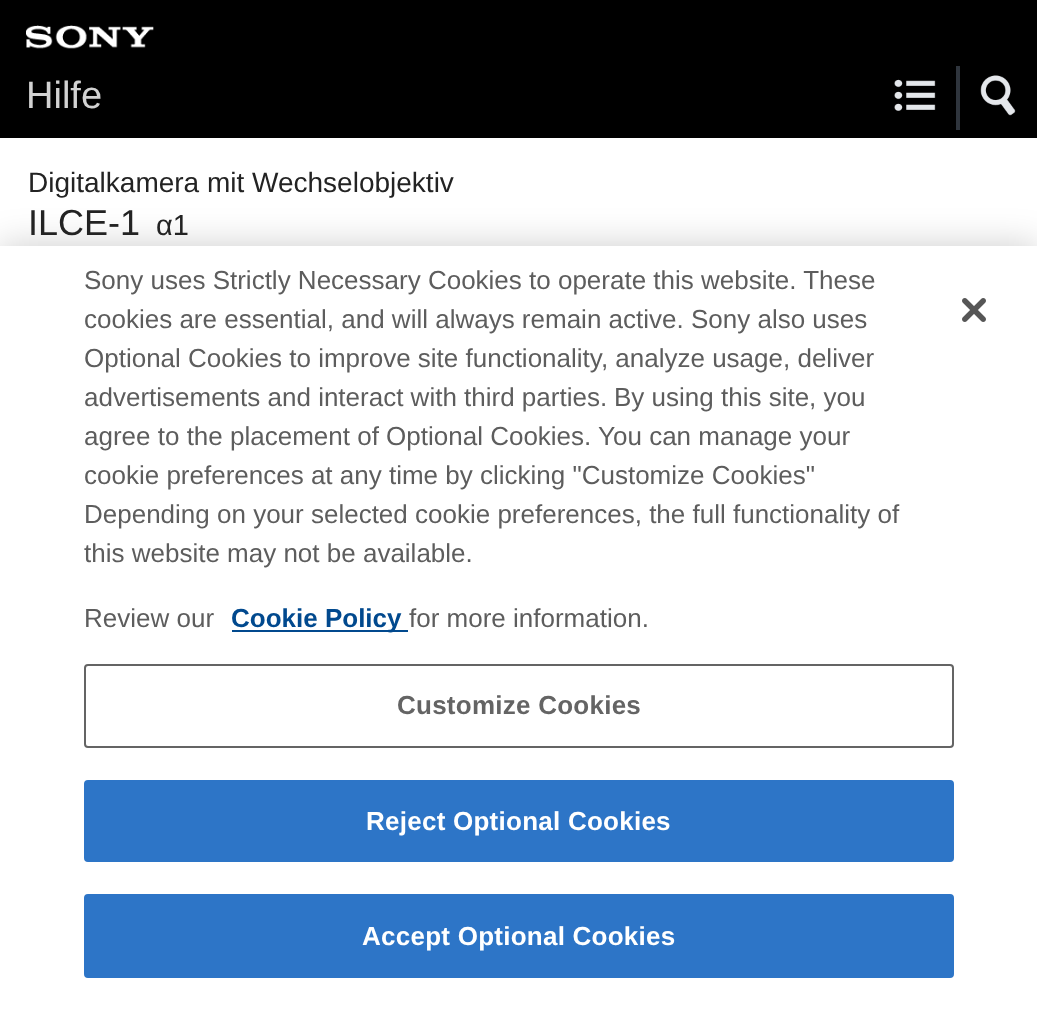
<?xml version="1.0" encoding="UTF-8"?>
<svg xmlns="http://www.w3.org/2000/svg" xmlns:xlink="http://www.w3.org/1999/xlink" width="1037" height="1010">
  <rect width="100%" height="100%" fill="#ffffff" />
  <rect width="1037" height="138" fill="#000000" />
  <image x="26" y="25" width="128" height="24" xlink:href="image1.png" />
  <rect x="956" y="66" width="4" height="64" fill="#2f353d" />
  <image x="894" y="79" width="42" height="32" xlink:href="image2.png" />
  <image x="980" y="75" width="36" height="41" xlink:href="image3.png" />
  <rect y="246" width="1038" height="764" fill="#000000" fill-opacity="0.2" filter="blur(18px)" />
  <rect y="246" width="1037" height="764" fill="#ffffff" />
  <rect x="232" y="630" width="176" height="2" fill="#01498e" />
  <rect x="85" y="665" width="868" height="82" rx="3" fill="none" stroke="#646464" stroke-width="2" />
  <rect x="85" y="781" width="868" height="80" rx="3" fill="#2d75c7" stroke="#2d75c7" stroke-width="2" />
  <rect x="85" y="895" width="868" height="82" rx="3" fill="#2d75c7" stroke="#2d75c7" stroke-width="2" />
  <image x="962" y="298" width="24" height="24" xlink:href="image4.png" />
  <text x="26" y="108" style="font-family: Liberation Sans; font-size: 38px; fill: #d2d2d2">Hilfe</text>
  <text x="28" y="192" style="font-family: Liberation Sans; font-size: 28px; fill: #232323">Digitalkamera mit Wechselobjektiv</text>
  <text x="28" y="235" style="font-family: Liberation Sans; font-size: 36px; fill: #232323">ILCE-1</text>
  <text x="156" y="235" style="font-family: Liberation Sans; font-size: 29px; fill: #232323">α1</text>
  <text x="84" y="289" style="font-family: Liberation Sans; font-size: 26px; fill: #5d5d5d">Sony uses Strictly Necessary Cookies to operate this website. These</text>
  <text x="84" y="328" style="font-family: Liberation Sans; font-size: 26px; fill: #5d5d5d">cookies are essential, and will always remain active. Sony also uses</text>
  <text x="84" y="367" style="font-family: Liberation Sans; font-size: 26px; fill: #5d5d5d">Optional Cookies to improve site functionality, analyze usage, deliver</text>
  <text x="84" y="406" style="font-family: Liberation Sans; font-size: 26px; fill: #5d5d5d">advertisements and interact with third parties.</text>
  <text x="614" y="406" style="font-family: Liberation Sans; font-size: 26px; fill: #5d5d5d">By using this site, you</text>
  <text x="84" y="445" style="font-family: Liberation Sans; font-size: 26px; fill: #5d5d5d">agree to the placement of Optional Cookies. You can manage your</text>
  <text x="84" y="484" style="font-family: Liberation Sans; font-size: 26px; fill: #5d5d5d">cookie preferences at any time by clicking "Customize Cookies"</text>
  <text x="84" y="523" style="font-family: Liberation Sans; font-size: 26px; fill: #5d5d5d">Depending on your selected cookie preferences, the full functionality of</text>
  <text x="84" y="562" style="font-family: Liberation Sans; font-size: 26px; fill: #5d5d5d">this website may not be available.</text>
  <text x="84" y="627" style="font-family: Liberation Sans; font-size: 26px; fill: #5d5d5d">Review our</text>
  <text x="231" y="627" style="font-family: Liberation Sans; font-size: 26px; font-weight: bold; fill: #01498e">Cookie Policy</text>
  <text x="409" y="627" style="font-family: Liberation Sans; font-size: 26px; fill: #5d5d5d">for more information.</text>
  <text x="397" y="714" style="font-family: Liberation Sans; font-size: 26px; font-weight: bold; letter-spacing: 0.25px; fill: #646464">Customize Cookies</text>
  <text x="366" y="830" style="font-family: Liberation Sans; font-size: 26px; font-weight: bold; letter-spacing: 0.25px; fill: #ffffff">Reject Optional Cookies</text>
  <text x="362" y="945" style="font-family: Liberation Sans; font-size: 26px; font-weight: bold; letter-spacing: 0.25px; fill: #ffffff">Accept Optional Cookies</text>
</svg>
